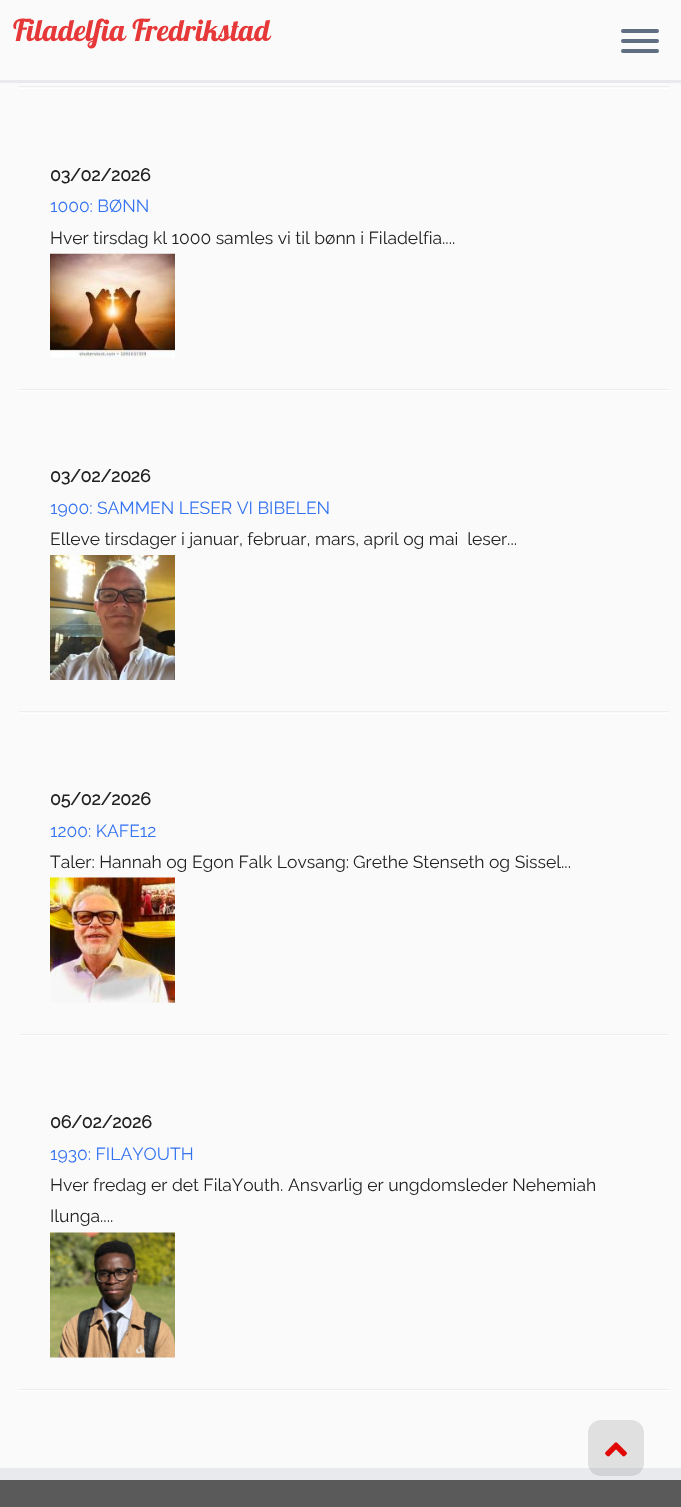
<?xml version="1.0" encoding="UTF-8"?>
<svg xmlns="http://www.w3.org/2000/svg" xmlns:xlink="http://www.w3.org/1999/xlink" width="681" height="1507">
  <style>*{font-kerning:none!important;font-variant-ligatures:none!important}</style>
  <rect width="100%" height="100%" fill="#fafafa" />
  <rect y="80" width="681" height="3" fill="#e9eaee" />
  <rect x="621" y="29" width="38" height="4" rx="2" fill="#5f6f81" />
  <rect x="621" y="39" width="38" height="4" rx="2" fill="#5f6f81" />
  <rect x="621" y="49" width="38" height="4" rx="2" fill="#5f6f81" />
  <rect x="19" y="86" width="650" height="1" fill="#eeeeee" />
  <rect x="19" y="88" width="650" height="1" fill="#ffffff" />
  <rect x="19" y="389" width="650" height="1" fill="#eeeeee" />
  <image x="50" y="253" width="125" height="105" xlink:href="image1.png" />
  <rect x="19" y="390" width="650" height="1" fill="#ffffff" />
  <rect x="19" y="711" width="650" height="1" fill="#eeeeee" />
  <image x="50" y="555" width="125" height="125" xlink:href="image2.png" />
  <rect x="19" y="713" width="650" height="1" fill="#ffffff" />
  <rect x="19" y="1034" width="650" height="1" fill="#eeeeee" />
  <image x="50" y="877" width="125" height="126" xlink:href="image3.png" />
  <rect x="19" y="1035" width="650" height="1" fill="#ffffff" />
  <rect x="19" y="1389" width="650" height="1" fill="#eeeeee" />
  <image x="50" y="1232" width="125" height="126" xlink:href="image4.png" />
  <rect x="19" y="1390" width="650" height="1" fill="#ffffff" />
  <rect y="1480" width="681" height="27" fill="#5a5a5a" />
  <rect y="1468" width="681" height="12" fill="#e9eaee" />
  <rect x="588" y="1420" width="56" height="56" rx="13" fill="#777777" fill-opacity="0.2" />
  <image x="605" y="1442" width="22" height="15" xlink:href="image5.png" />
  <text x="13" y="41" style="font-family: Lobster; font-size: 30px; fill: #e63838">Filadelfia Fredrikstad</text>
  <text x="50" y="181" style="font-family: Raleway; font-size: 17.5px; font-weight: bold; fill: #212121">03/02/2026</text>
  <text x="50" y="212" style="font-family: Raleway; font-size: 17.5px; font-weight: 100; fill: #3372f0">1000: BØNN</text>
  <text x="50" y="244" style="font-family: Raleway; font-size: 17.5px; font-weight: 100; fill: #212121">Hver tirsdag kl 1000 samles vi til bønn i Filadelfia....</text>
  <text x="50" y="482" style="font-family: Raleway; font-size: 17.5px; font-weight: bold; fill: #212121">03/02/2026</text>
  <text x="50" y="514" style="font-family: Raleway; font-size: 17.5px; font-weight: 100; fill: #3372f0">1900: SAMMEN LESER VI BIBELEN</text>
  <text x="50" y="545" style="font-family: Raleway; font-size: 17.5px; font-weight: 100; fill: #212121">Elleve tirsdager i januar, februar,</text>
  <text x="315" y="545" style="font-family: Raleway; font-size: 17.5px; font-weight: 100; fill: #212121" xml:space="preserve">mars, april og mai  leser...</text>
  <text x="50" y="805" style="font-family: Raleway; font-size: 17.5px; font-weight: bold; fill: #212121">05/02/2026</text>
  <text x="50" y="837" style="font-family: Raleway; font-size: 17.5px; font-weight: 100; fill: #3372f0">1200: KAFE12</text>
  <text x="50" y="868" style="font-family: Raleway; font-size: 17.5px; font-weight: 100; fill: #212121">Taler: Hannah og Egon Falk Lovsang:</text>
  <text x="353" y="868" style="font-family: Raleway; font-size: 17.5px; font-weight: 100; fill: #212121">Grethe Stenseth og Sissel...</text>
  <text x="50" y="1128" style="font-family: Raleway; font-size: 17.5px; font-weight: bold; fill: #212121">06/02/2026</text>
  <text x="50" y="1160" style="font-family: Raleway; font-size: 17.5px; font-weight: 100; fill: #3372f0">1930: FILAYOUTH</text>
  <text x="50" y="1191" style="font-family: Raleway; font-size: 17.5px; font-weight: 100; fill: #212121">Hver fredag er det FilaYouth.</text>
  <text x="288" y="1191" style="font-family: Raleway; font-size: 17.5px; font-weight: 100; fill: #212121">Ansvarlig er ungdomsleder Nehemiah</text>
  <text x="50" y="1222" style="font-family: Raleway; font-size: 17.5px; font-weight: 100; fill: #212121">Ilunga....</text>
</svg>
